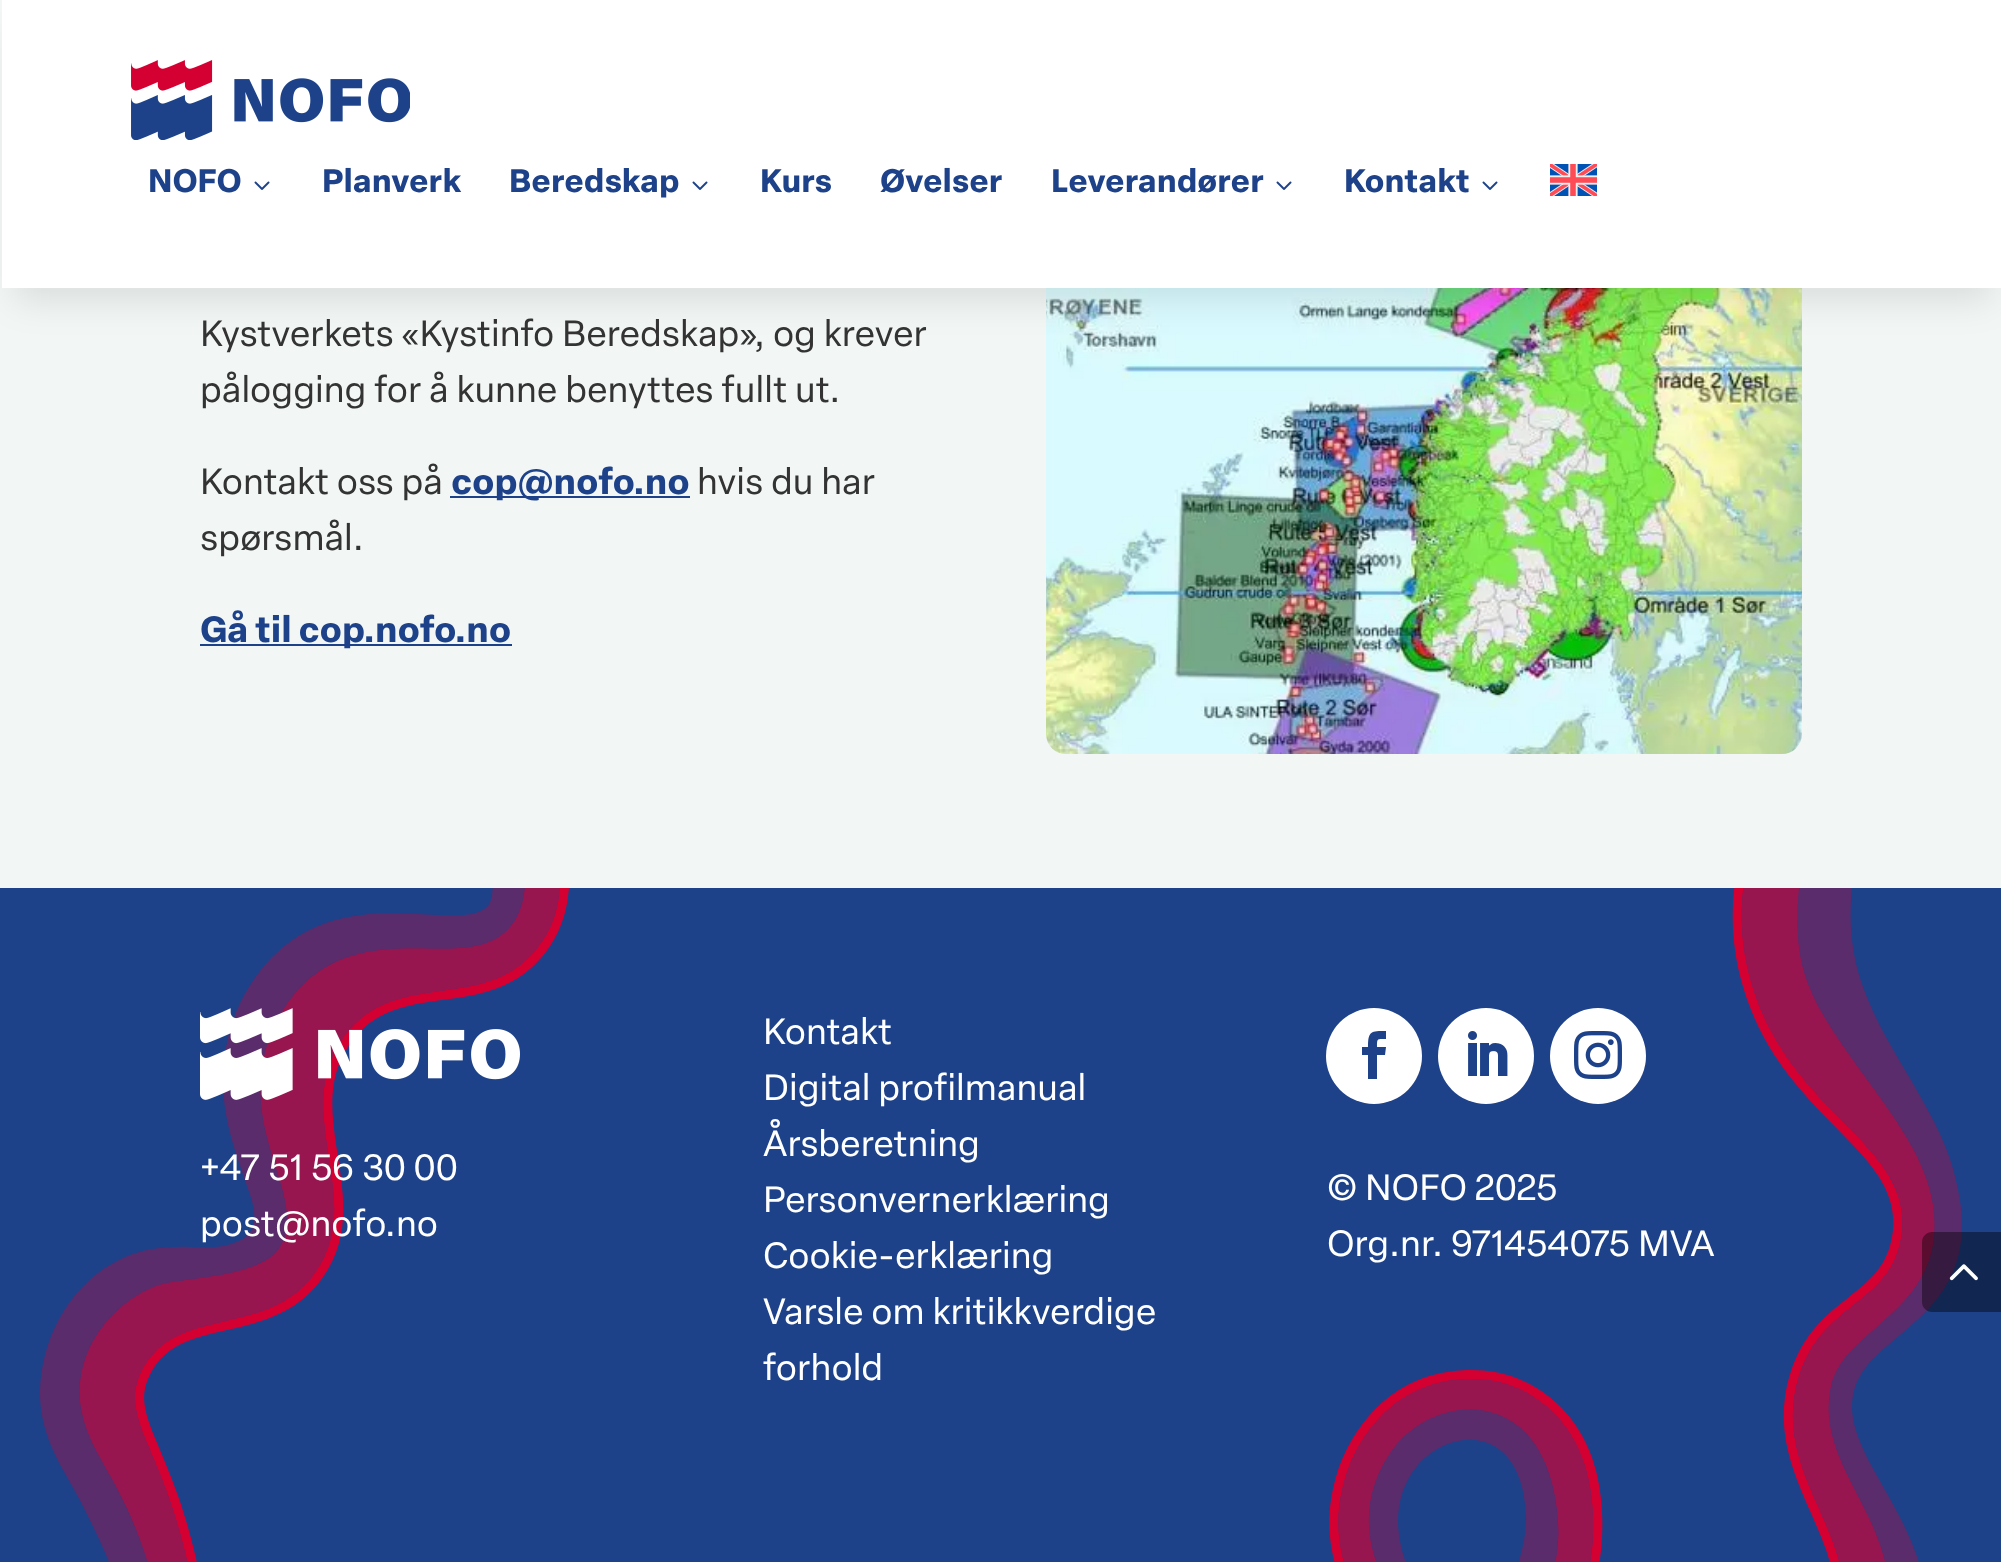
<?xml version="1.0" encoding="UTF-8"?>
<svg xmlns="http://www.w3.org/2000/svg" xmlns:xlink="http://www.w3.org/1999/xlink" width="2001" height="1562">
  <rect width="100%" height="100%" fill="#f2f7f6" />
  <image x="1046" y="288" width="756" height="466" xlink:href="image4.png" />
  <rect x="14" y="36" width="1978" height="264" fill="#000000" fill-opacity="0.1" filter="blur(18px)" />
  <rect x="2" width="1999" height="288" fill="#ffffff" />
  <image x="131" y="60" width="279" height="80" xlink:href="image1.png" />
  <image x="254" y="181" width="16" height="9" xlink:href="image2.png" />
  <image x="692" y="181" width="16" height="9" xlink:href="image2.png" />
  <image x="1276" y="181" width="16" height="9" xlink:href="image2.png" />
  <image x="1482" y="181" width="16" height="9" xlink:href="image2.png" />
  <image x="1550" y="164" width="47" height="32" xlink:href="image3.png" />
  <rect x="450" y="496" width="240" height="2" fill="#1d4289" />
  <rect x="200" y="644" width="312" height="2" fill="#1d4289" />
  <rect y="888" width="2001" height="674" fill="#1d4289" />
  <image x="40" y="888" width="1922" height="674" xlink:href="image5.png" />
  <image x="200" y="1008" width="320" height="92" xlink:href="image6.png" />
  <circle cx="1374" cy="1056" r="48" fill="#ffffff" />
  <path d="M 1368 1079 h 9 v -24 h 8 l 1 -8 h -9 c 0 -9 0 -8 9 -8 v -8 c -15 0 -18 0 -18 16 h -6 v 8 h 6 z" fill="#1d4289" />
  <circle cx="1486" cy="1056" r="48" fill="#ffffff" />
  <image x="1468" y="1031" width="40" height="45" xlink:href="image7.png" />
  <circle cx="1598" cy="1056" r="48" fill="#ffffff" />
  <image x="1574" y="1031" width="48" height="48" xlink:href="image8.png" />
  <path d="M 1932 1232 h 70 v 80 h -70 c -5.5 0 -10 -4.5 -10 -10 v -60 c 0 -5.5 4.5 -10 10 -10 z" fill="#000000" fill-opacity="0.4" />
  <image x="1949" y="1264" width="29" height="17" xlink:href="image9.png" />
  <text x="148" y="192" style="font-family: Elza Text; font-size: 32px; font-weight: bold; fill: #1d4289">NOFO</text>
  <text x="322" y="192" style="font-family: Elza Text; font-size: 32px; font-weight: bold; fill: #1d4289">Planverk</text>
  <text x="509" y="192" style="font-family: Elza Text; font-size: 32px; font-weight: bold; fill: #1d4289">Beredskap</text>
  <text x="760" y="192" style="font-family: Elza Text; font-size: 32px; font-weight: bold; fill: #1d4289">Kurs</text>
  <text x="880" y="192" style="font-family: Elza Text; font-size: 32px; font-weight: bold; fill: #1d4289">Øvelser</text>
  <text x="1051" y="192" style="font-family: Elza Text; font-size: 32px; font-weight: bold; fill: #1d4289">Leverandører</text>
  <text x="1344" y="192" style="font-family: Elza Text; font-size: 32px; font-weight: bold; fill: #1d4289">Kontakt</text>
  <text x="200" y="346" style="font-family: Elza Text; font-size: 36px; fill: #333333">Kystverkets «Kystinfo Beredskap», og krever</text>
  <text x="200" y="402" style="font-family: Elza Text; font-size: 36px; fill: #333333">pålogging for å kunne benyttes fullt ut.</text>
  <text x="200" y="494" style="font-family: Elza Text; font-size: 36px; fill: #333333">Kontakt oss på</text>
  <text x="451" y="494" style="font-family: Elza Text; font-size: 36px; font-weight: bold; fill: #1d4289">cop@nofo.no</text>
  <text x="697" y="494" style="font-family: Elza Text; font-size: 36px; fill: #333333">hvis du har</text>
  <text x="200" y="550" style="font-family: Elza Text; font-size: 36px; fill: #333333">spørsmål.</text>
  <text x="200" y="642" style="font-family: Elza Text; font-size: 36px; font-weight: bold; fill: #1d4289">Gå til cop.nofo.no</text>
  <text x="200" y="1180" style="font-family: Elza Text; font-size: 36px; fill: #ffffff">+47 51 56 30 00</text>
  <text x="200" y="1236" style="font-family: Elza Text; font-size: 36px; fill: #ffffff">post@nofo.no</text>
  <text x="763" y="1044" style="font-family: Elza Text; font-size: 36px; fill: #ffffff">Kontakt</text>
  <text x="763" y="1100" style="font-family: Elza Text; font-size: 36px; fill: #ffffff">Digital profilmanual</text>
  <text x="763" y="1156" style="font-family: Elza Text; font-size: 36px; fill: #ffffff">Årsberetning</text>
  <text x="763" y="1212" style="font-family: Elza Text; font-size: 36px; fill: #ffffff">Personvernerklæring</text>
  <text x="763" y="1268" style="font-family: Elza Text; font-size: 36px; fill: #ffffff">Cookie-erklæring</text>
  <text x="763" y="1324" style="font-family: Elza Text; font-size: 36px; fill: #ffffff">Varsle om kritikkverdige</text>
  <text x="763" y="1380" style="font-family: Elza Text; font-size: 36px; fill: #ffffff">forhold</text>
  <text x="1327" y="1200" style="font-family: Elza Text; font-size: 36px; fill: #ffffff">© NOFO 2025</text>
  <text x="1327" y="1256" style="font-family: Elza Text; font-size: 36px; fill: #ffffff">Org.nr. 971454075 MVA</text>
</svg>
